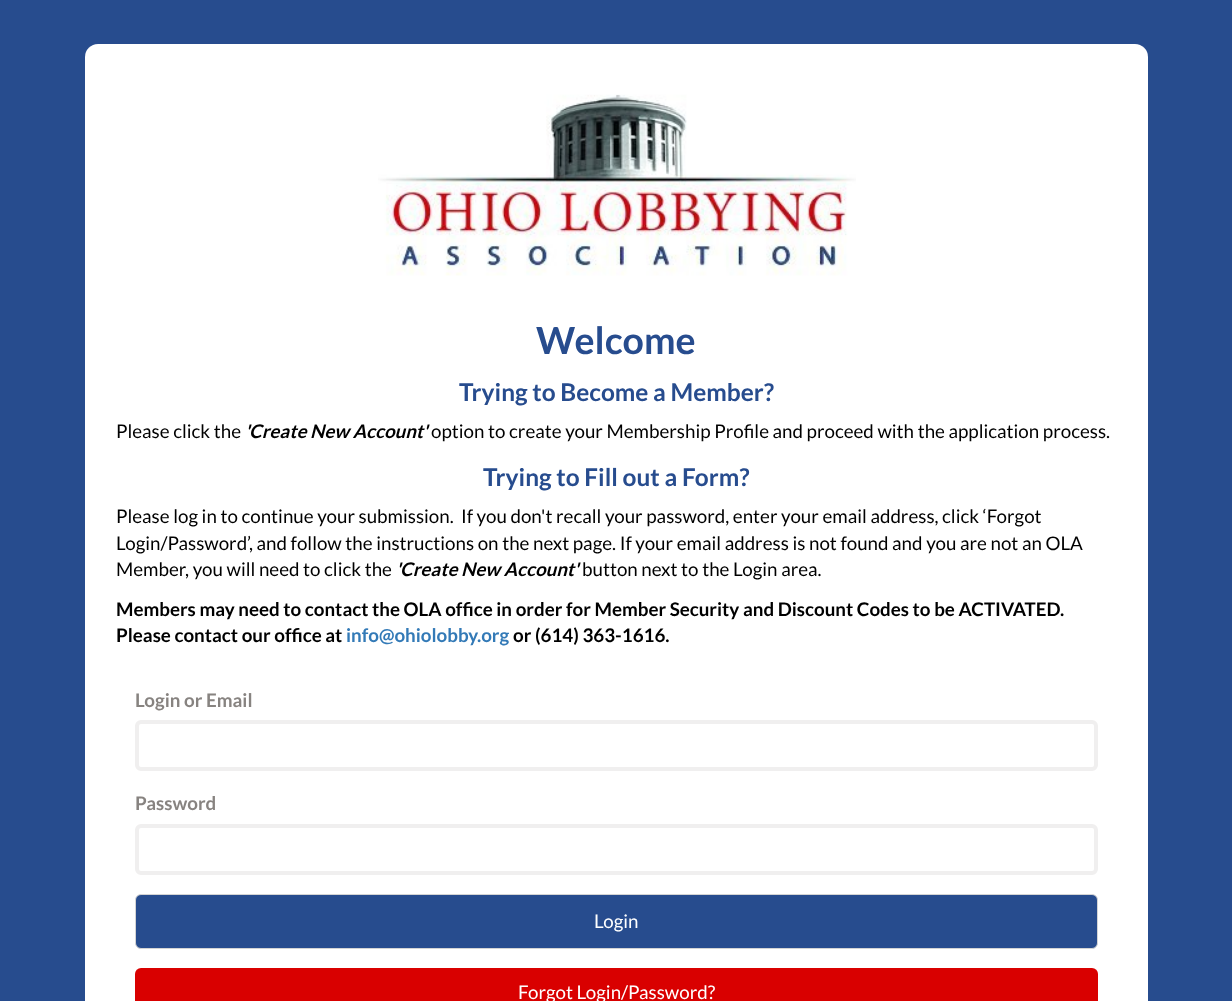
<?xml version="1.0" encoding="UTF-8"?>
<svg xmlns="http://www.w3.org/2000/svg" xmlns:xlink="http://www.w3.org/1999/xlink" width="1232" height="1001">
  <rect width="100%" height="100%" fill="#274c8e" />
  <rect x="85" y="44" width="1063" height="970" rx="13" fill="#ffffff" />
  <image x="378" y="94" width="478" height="182" xlink:href="image1.png" />
  <rect x="137" y="722" width="959" height="47" rx="4" fill="none" stroke="#f0efef" stroke-width="4" />
  <rect x="137" y="826" width="959" height="47" rx="4" fill="none" stroke="#f0efef" stroke-width="4" />
  <rect x="135.5" y="894.5" width="962" height="54" rx="5.5" fill="#274c8e" stroke="#d4d4d4" />
  <rect x="135" y="968" width="963" height="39" rx="6" fill="#d90000" />
  <text x="536" y="354" style="font-family: Lato; font-size: 37.5px; font-weight: bold; fill: #274c8e">Welcome</text>
  <text x="459" y="401" style="font-family: Lato; font-size: 24.4px; font-weight: bold; fill: #274c8e">Trying to Become a Member?</text>
  <text x="116" y="438" style="font-family: Lato; font-size: 18.75px; fill: #000000">Please click the</text>
  <text x="245" y="438" style="font-family: Lato; font-size: 18.75px; font-weight: bold; font-style: italic; fill: #000000">'Create New Account'</text>
  <text x="431" y="438" style="font-family: Lato; font-size: 18.75px; fill: #000000">option to create your Membership Profile and proceed with the application process.</text>
  <text x="483" y="486" style="font-family: Lato; font-size: 24.4px; font-weight: bold; fill: #274c8e">Trying to Fill out a Form?</text>
  <text x="116" y="523" style="font-family: Lato; font-size: 18.75px; fill: #000000" xml:space="preserve">Please log in to continue your submission.  If you don't recall your password, enter your email address, click ‘Forgot</text>
  <text x="116" y="550" style="font-family: Lato; font-size: 18.75px; fill: #000000">Login/Password’, and follow the instructions on the next page. If your email address is not found and you are not an OLA</text>
  <text x="116" y="576" style="font-family: Lato; font-size: 18.75px; fill: #000000">Member, you will need to click the</text>
  <text x="396" y="576" style="font-family: Lato; font-size: 18.75px; font-weight: bold; font-style: italic; fill: #000000">'Create New Account'</text>
  <text x="582" y="576" style="font-family: Lato; font-size: 18.75px; fill: #000000">button next to the Login area.</text>
  <text x="116" y="616" style="font-family: Lato; font-size: 18.75px; font-weight: bold; fill: #000000">Members may need to contact the OLA office in order for Member Security and Discount Codes to be ACTIVATED.</text>
  <text x="116" y="642" style="font-family: Lato; font-size: 18.75px; font-weight: bold; fill: #000000">Please contact our office at</text>
  <text x="346" y="642" style="font-family: Lato; font-size: 18.75px; font-weight: bold; fill: #337ab7">info@ohiolobby.org</text>
  <text x="513" y="642" style="font-family: Lato; font-size: 18.75px; font-weight: bold; fill: #000000">or (614) 363-1616.</text>
  <text x="135" y="707" style="font-family: Lato; font-size: 18.75px; font-weight: bold; fill: #878380">Login or Email</text>
  <text x="135" y="810" style="font-family: Lato; font-size: 18.75px; font-weight: bold; fill: #878380">Password</text>
  <text x="594" y="928" style="font-family: Lato; font-size: 18.75px; fill: #ffffff">Login</text>
  <text x="518" y="999" style="font-family: Lato; font-size: 18.75px; fill: #ffffff">Forgot Login/Password?</text>
</svg>
